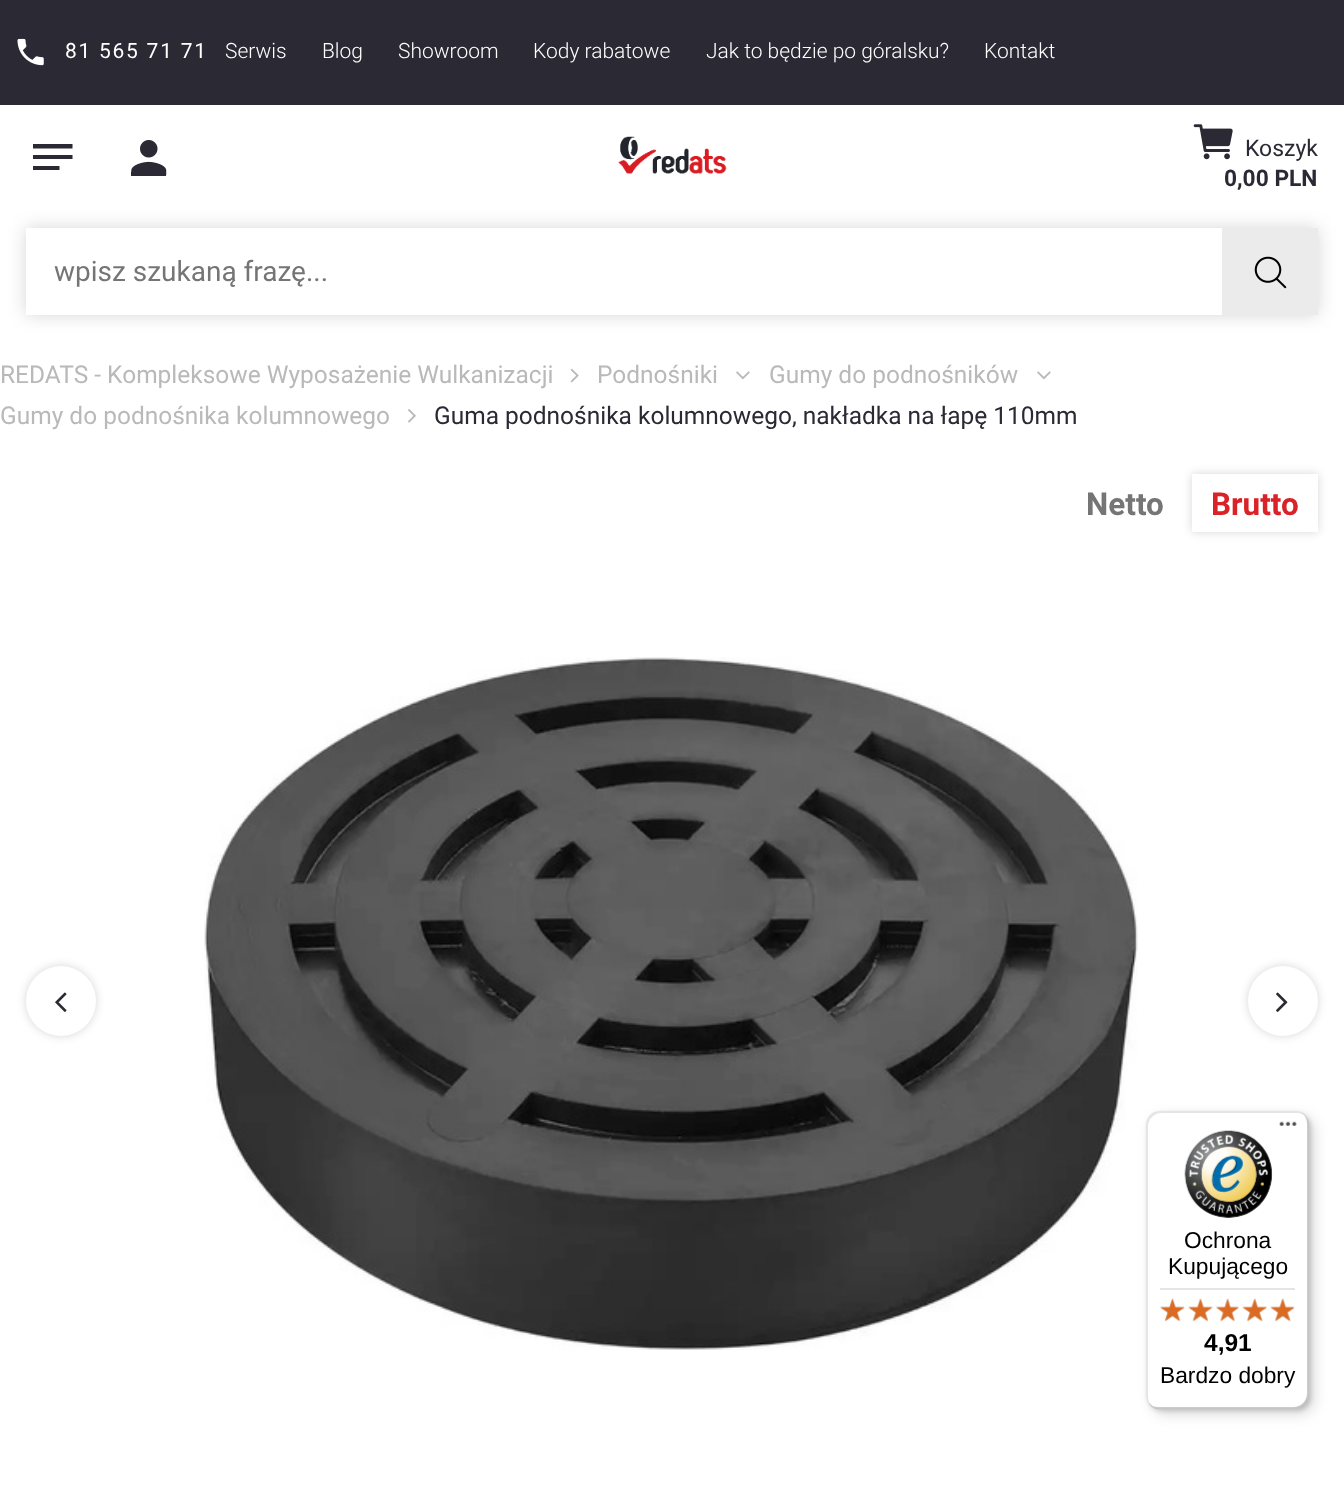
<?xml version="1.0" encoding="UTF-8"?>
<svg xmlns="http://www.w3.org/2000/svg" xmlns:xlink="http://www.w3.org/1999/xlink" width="1344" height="1502">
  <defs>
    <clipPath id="clip1"><path d="M 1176 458 h 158 v 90 h -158 z m 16 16 h 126 v 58 h -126 z" clip-rule="evenodd" /></clipPath>
  </defs>
  <rect width="100%" height="100%" fill="#ffffff" />
  <rect width="1344" height="105" fill="#2a2934" />
  <image x="17" y="38" width="27" height="28" xlink:href="image1.png" />
  <path d="M 33 170 h 26.5 v -4 h -26.5 z m 0 -26 v 4.5 h 39.5 v -4.5 z m 0 15 h 39.5 v -4 h -39.5 z" fill="#2a2934" />
  <rect x="131" y="172" width="35" height="4" fill="#2a2934" />
  <image x="131" y="140" width="36" height="35" xlink:href="image2.png" />
  <image x="618" y="136" width="109" height="38" xlink:href="image3.png" />
  <image x="1193" y="124" width="40" height="36" xlink:href="image4.png" />
  <rect x="26" y="228" width="1292" height="87" fill="#000000" fill-opacity="0.16" filter="blur(9px)" />
  <rect x="26" y="228" width="1196" height="87" fill="#ffffff" />
  <rect x="1222" y="228" width="96" height="87" fill="#ebebeb" />
  <image x="1254" y="256" width="33" height="33" xlink:href="image5.png" />
  <image x="570" y="368" width="9" height="15" xlink:href="image6.png" />
  <image x="736" y="371" width="14" height="9" xlink:href="image7.png" />
  <image x="1037" y="371" width="14" height="9" xlink:href="image7.png" />
  <image x="408" y="409" width="8" height="14" xlink:href="image8.png" />
  <g clip-path="url(#clip1)">
    <rect x="1192" y="474" width="126" height="58" fill="#000000" fill-opacity="0.16" filter="blur(5px)" />
  </g>
  <rect x="26" y="966" width="70" height="70" rx="35" fill="#000000" fill-opacity="0.16" filter="blur(5px)" />
  <circle cx="61" cy="1001" r="35" fill="#ffffff" />
  <image x="55" y="992" width="12" height="20" xlink:href="image9.png" />
  <image x="204" y="657" width="934" height="693" xlink:href="image10.png" />
  <rect x="1248" y="966" width="70" height="70" rx="35" fill="#000000" fill-opacity="0.16" filter="blur(5px)" />
  <circle cx="1283" cy="1001" r="35" fill="#ffffff" />
  <image x="1276" y="992" width="12" height="20" xlink:href="image11.png" />
  <rect x="1152" y="1117" width="162" height="297" rx="14" fill="#000000" fill-opacity="0.15" filter="blur(7px)" />
  <rect x="1148" y="1113" width="163" height="298" rx="14" fill="#000000" fill-opacity="0.15" filter="blur(2px)" />
  <rect x="1146" y="1111" width="163" height="298" rx="14" fill="#ffffff" />
  <path d="M 1162 1113 h 135 c 3 0 7 1 9 4 c -2 -4 -6 -6 -11 -6 h -135 c -8 0 -14 6 -14 14 v 270 c 0 6 3 10 8 13 c -4 -3 -6 -7 -6 -12 v -269 c 0 -8 6 -14 14 -14 z" fill="#000000" fill-opacity="0.1" />
  <path d="M 1149 1403 c 2 4 6 6 11 6 h 135 c 8 0 14 -6 14 -14 v -270 c 0 -6 -3 -10 -8 -13 c 4 3 6 7 6 12 v 269 c 0 8 -6 14 -14 14 h -135 c -3 0 -7 -1 -9 -4 z" fill="#000000" fill-opacity="0.2" />
  <path d="M 1149 1403 c 2 4 6 6 11 6 h 135 c 8 0 14 -6 14 -14 v -270 c 0 -4 -1 -7 -4 -9 c 2 2 3 5 3 8 v 270 c 0 7 -6 14 -14 14 h -135 c -4 0 -8 -2 -10 -5 z" fill="#323232" fill-opacity="0.2" />
  <path d="M 1149 1404 c 2 3 6 5 11 5 h 135 c 8 0 14 -6 14 -14 v -270 c 0 -5 -2 -9 -5 -11 c 2 3 4 6 4 10 v 270 c 0 8 -6 14 -14 14 h -135 c -4 0 -7 -2 -10 -4 z" fill="#ffffff" fill-opacity="0.3" />
  <image x="1279" y="1121" width="18" height="5" xlink:href="image12.png" />
  <image x="1184" y="1130" width="89" height="88" xlink:href="image13.png" />
  <rect x="1160" y="1288" width="135" height="2" fill="#e5e5e5" />
  <image x="1160" y="1298" width="25" height="23" xlink:href="image14.png" />
  <image x="1189" y="1298" width="24" height="23" xlink:href="image15.png" />
  <image x="1216" y="1298" width="23" height="23" xlink:href="image16.png" />
  <image x="1243" y="1299" width="24" height="22" xlink:href="image17.png" />
  <image x="1270" y="1298" width="25" height="23" xlink:href="image18.png" />
  <image x="1160" y="1298" width="25" height="24" xlink:href="image19.png" />
  <image x="1188" y="1298" width="25" height="24" xlink:href="image20.png" />
  <image x="1216" y="1298" width="23" height="24" xlink:href="image21.png" />
  <image x="1242" y="1298" width="25" height="24" xlink:href="image22.png" />
  <image x="1270" y="1298" width="24" height="24" xlink:href="image23.png" />
  <text x="65" y="58" style="font-family: Roboto; font-size: 21px; letter-spacing: 1.75px; fill: #ffffff">81 565 71 71</text>
  <text x="225" y="58" style="font-family: Roboto; font-size: 21px; font-weight: 300; fill: #ffffff">Serwis</text>
  <text x="322" y="58" style="font-family: Roboto; font-size: 21px; font-weight: 300; fill: #ffffff">Blog</text>
  <text x="398" y="58" style="font-family: Roboto; font-size: 21px; font-weight: 300; fill: #ffffff">Showroom</text>
  <text x="533" y="58" style="font-family: Roboto; font-size: 21px; font-weight: 300; fill: #ffffff">Kody rabatowe</text>
  <text x="706" y="58" style="font-family: Roboto; font-size: 21px; font-weight: 300; fill: #ffffff">Jak to będzie po góralsku?</text>
  <text x="984" y="58" style="font-family: Roboto; font-size: 21px; font-weight: 300; fill: #ffffff">Kontakt</text>
  <text x="1245" y="156" style="font-family: Roboto; font-size: 23px; fill: #2a2934">Koszyk</text>
  <text x="1224" y="186" style="font-family: Roboto; font-size: 22.75px; font-weight: bold; fill: #2a2934">0,00 PLN</text>
  <text x="54" y="281" style="font-family: Roboto; font-size: 28px; fill: #757575">wpisz szukaną frazę...</text>
  <text x="0" y="383" style="font-family: Roboto; font-size: 24.5px; fill: #b9b9b9">REDATS - Kompleksowe Wyposażenie Wulkanizacji</text>
  <text x="597" y="383" style="font-family: Roboto; font-size: 24.5px; fill: #b9b9b9">Podnośniki</text>
  <text x="769" y="383" style="font-family: Roboto; font-size: 24.5px; fill: #b9b9b9">Gumy do podnośników</text>
  <text x="0" y="424" style="font-family: Roboto; font-size: 24.5px; fill: #b9b9b9">Gumy do podnośnika kolumnowego</text>
  <text x="434" y="424" style="font-family: Roboto; font-size: 24.5px; fill: #2a2934">Guma podnośnika kolumnowego, nakładka na łapę 110mm</text>
  <text x="1086" y="515" style="font-family: Roboto; font-size: 31.5px; font-weight: bold; fill: #757575">Netto</text>
  <text x="1211" y="515" style="font-family: Roboto; font-size: 31.5px; font-weight: bold; fill: #da2328">Brutto</text>
  <text x="1184" y="1248" style="font-family: Liberation Sans; font-size: 22.75px; fill: #000000">Ochrona</text>
  <text x="1168" y="1274" style="font-family: Liberation Sans; font-size: 22.75px; fill: #000000">Kupującego</text>
  <text x="1204" y="1351" style="font-family: Liberation Sans; font-size: 24.5px; font-weight: bold; fill: #000000">4,91</text>
  <text x="1160" y="1383" style="font-family: Liberation Sans; font-size: 22.75px; fill: #000000">Bardzo dobry</text>
</svg>
